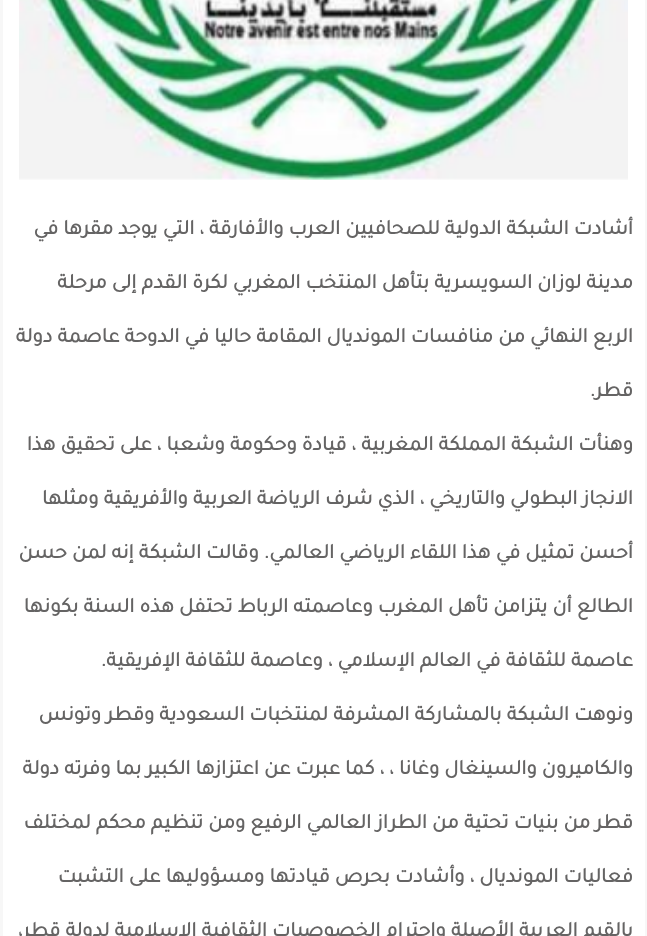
<?xml version="1.0" encoding="UTF-8"?>
<svg xmlns="http://www.w3.org/2000/svg" xmlns:xlink="http://www.w3.org/1999/xlink" width="647" height="936">
  <rect width="100%" height="100%" fill="#f7f7f7" />
  <rect x="3" width="642" height="936" fill="#ffffff" />
  <image x="19" y="0" width="609" height="180" xlink:href="image1.png" />
  <text x="633" y="234" style="font-family: Tajawal; font-size: 21px; font-weight: bold; direction: rtl; fill: #656464">أشادت الشبكة الدولية للصحافيين العرب والأفارقة ، التي يوجد مقرها في</text>
  <text x="633" y="288" style="font-family: Tajawal; font-size: 21px; font-weight: bold; direction: rtl; fill: #656464">مدينة لوزان السويسرية بتأهل المنتخب المغربي لكرة القدم إلى مرحلة</text>
  <text x="633" y="342" style="font-family: Tajawal; font-size: 21px; font-weight: bold; direction: rtl; fill: #656464">الربع النهائي من منافسات المونديال المقامة حاليا في الدوحة عاصمة دولة</text>
  <text x="633" y="396" style="font-family: Tajawal; font-size: 21px; font-weight: bold; direction: rtl; fill: #656464">قطر.</text>
  <text x="633" y="450" style="font-family: Tajawal; font-size: 21px; font-weight: bold; direction: rtl; fill: #656464">وهنأت الشبكة المملكة المغربية ، قيادة وحكومة وشعبا ، على تحقيق هذا</text>
  <text x="633" y="504" style="font-family: Tajawal; font-size: 21px; font-weight: bold; direction: rtl; fill: #656464">الانجاز البطولي والتاريخي ، الذي شرف الرياضة العربية والأفريقية ومثلها</text>
  <text x="633" y="558" style="font-family: Tajawal; font-size: 21px; font-weight: bold; direction: rtl; fill: #656464">أحسن تمثيل في هذا اللقاء الرياضي العالمي. وقالت الشبكة إنه لمن حسن</text>
  <text x="633" y="612" style="font-family: Tajawal; font-size: 21px; font-weight: bold; direction: rtl; fill: #656464">الطالع أن يتزامن تأهل المغرب وعاصمته الرباط تحتفل هذه السنة بكونها</text>
  <text x="633" y="666" style="font-family: Tajawal; font-size: 21px; font-weight: bold; direction: rtl; fill: #656464">عاصمة للثقافة في العالم الإسلامي ، وعاصمة للثقافة الإفريقية.</text>
  <text x="633" y="720" style="font-family: Tajawal; font-size: 21px; font-weight: bold; direction: rtl; fill: #656464">ونوهت الشبكة بالمشاركة المشرفة لمنتخبات السعودية وقطر وتونس</text>
  <text x="633" y="774" style="font-family: Tajawal; font-size: 21px; font-weight: bold; direction: rtl; fill: #656464">والكاميرون والسينغال وغانا ، ، كما عبرت عن اعتزازها الكبير بما وفرته دولة</text>
  <text x="633" y="828" style="font-family: Tajawal; font-size: 21px; font-weight: bold; direction: rtl; fill: #656464">قطر من بنيات تحتية من الطراز العالمي الرفيع ومن تنظيم محكم لمختلف</text>
  <text x="633" y="882" style="font-family: Tajawal; font-size: 21px; font-weight: bold; direction: rtl; fill: #656464">فعاليات المونديال ، وأشادت بحرص قيادتها ومسؤوليها على التشبت</text>
  <text x="633" y="936" style="font-family: Tajawal; font-size: 21px; font-weight: bold; direction: rtl; fill: #656464">بالقيم العربية الأصيلة واحترام الخصوصيات الثقافية الإسلامية لدولة قطر،</text>
</svg>
